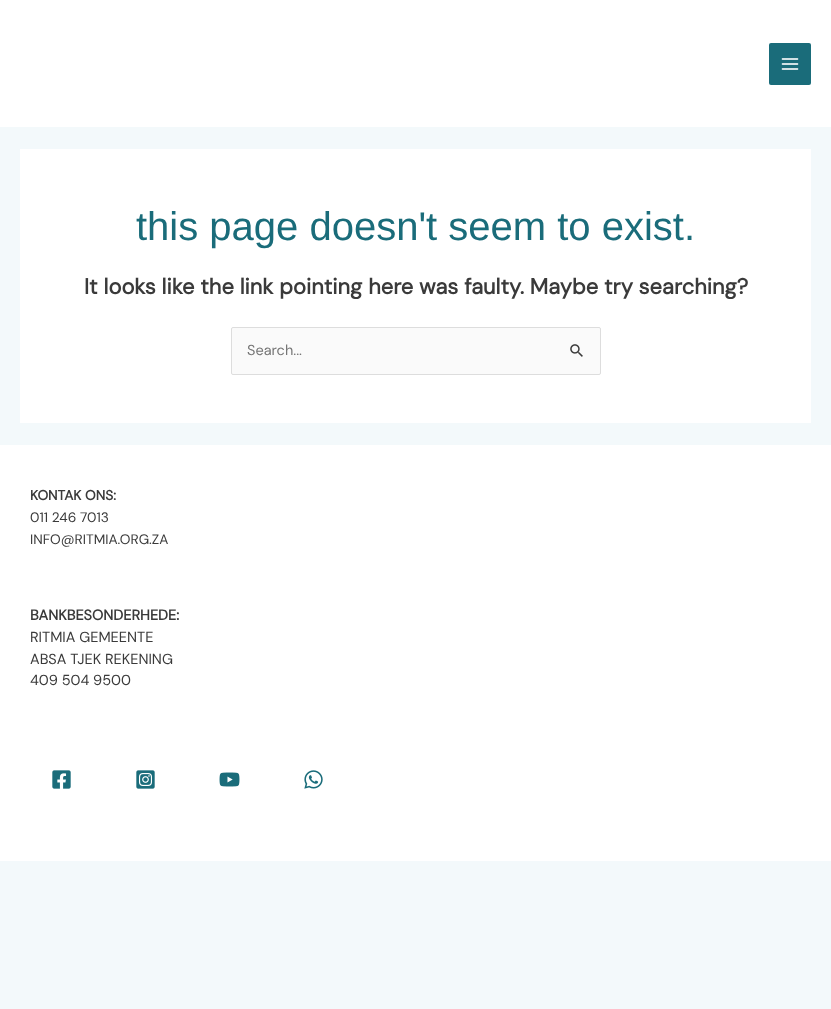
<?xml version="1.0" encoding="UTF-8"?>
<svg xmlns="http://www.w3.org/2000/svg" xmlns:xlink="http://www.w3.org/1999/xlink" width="831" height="1009">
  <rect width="100%" height="100%" fill="#f3f9fb" />
  <rect width="831" height="127" fill="#ffffff" />
  <rect x="769" y="43" width="42" height="42" rx="2" fill="#1a6c7a" />
  <image x="781" y="58" width="18" height="12" xlink:href="image1.png" />
  <rect x="20" y="149" width="791" height="274" fill="#ffffff" />
  <rect x="231.5" y="327.5" width="369" height="47" rx="1.5" fill="#fafafa" stroke="#dddddd" />
  <image x="570" y="344" width="13" height="13" xlink:href="image2.png" />
  <rect y="445" width="831" height="416" fill="#ffffff" />
  <image x="52" y="770" width="19" height="19" xlink:href="image3.png" />
  <image x="136" y="770" width="19" height="19" xlink:href="image4.png" />
  <image x="219" y="772" width="21" height="15" xlink:href="image5.png" />
  <image x="304" y="770" width="19" height="19" xlink:href="image6.png" />
  <text x="136" y="240" style="font-family: Liberation Sans; font-size: 40px; fill: #1a6c7a">this page doesn't seem to exist.</text>
  <text x="84" y="294" style="font-family: DM Sans; font-size: 21.9px; font-weight: bold; fill: #3a3a3a">It looks like the link pointing here was faulty. Maybe try searching?</text>
  <text x="247" y="355" style="font-family: DM Sans; font-size: 14.5px; fill: #757575">Search...</text>
  <text x="30" y="500" style="font-family: DM Sans; font-size: 13.75px; font-weight: bold; fill: #3a3a3a">KONTAK ONS:</text>
  <text x="30" y="522" style="font-family: DM Sans; font-size: 13.75px; fill: #3a3a3a">011 246 7013</text>
  <text x="30" y="544" style="font-family: DM Sans; font-size: 13.75px; fill: #3a3a3a">INFO@RITMIA.ORG.ZA</text>
  <text x="30" y="620" style="font-family: DM Sans; font-size: 14.5px; font-weight: bold; fill: #3a3a3a">BANKBESONDERHEDE:</text>
  <text x="30" y="642" style="font-family: DM Sans; font-size: 14.5px; fill: #3a3a3a">RITMIA GEMEENTE</text>
  <text x="30" y="664" style="font-family: DM Sans; font-size: 14.5px; fill: #3a3a3a">ABSA TJEK REKENING</text>
  <text x="30" y="685" style="font-family: DM Sans; font-size: 14.5px; fill: #3a3a3a">409 504 9500</text>
</svg>
